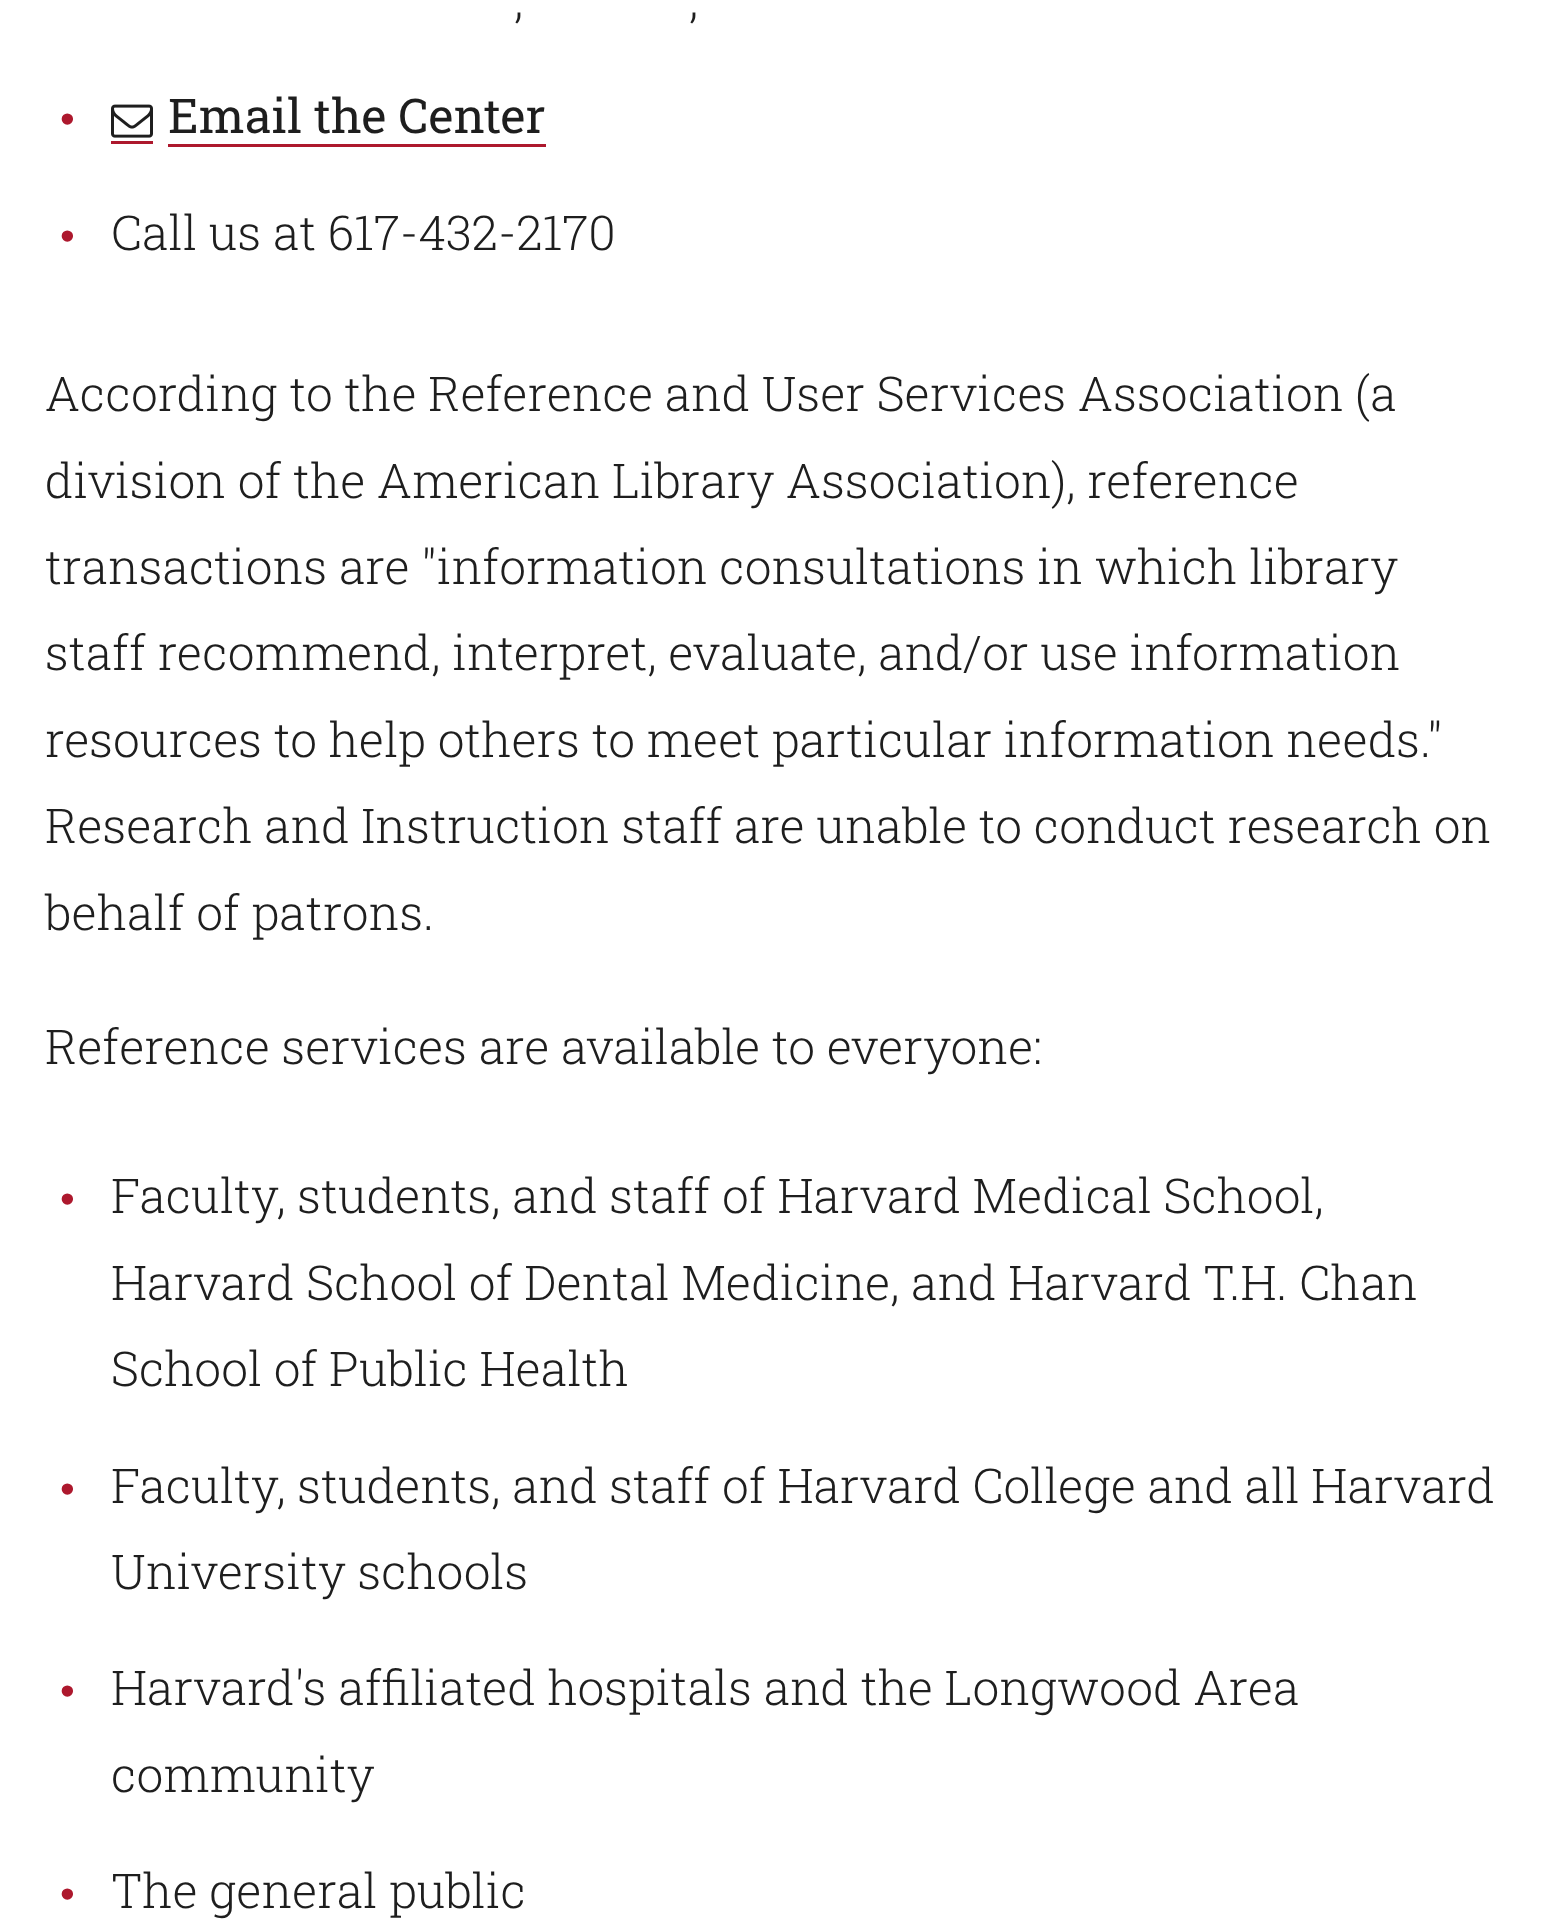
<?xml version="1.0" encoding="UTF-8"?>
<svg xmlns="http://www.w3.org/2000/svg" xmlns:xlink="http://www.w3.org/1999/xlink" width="1543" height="1924">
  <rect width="100%" height="100%" fill="#ffffff" />
  <rect x="111" y="141" width="42" height="3" fill="#ad182d" />
  <rect x="168" y="144" width="378" height="3" fill="#ad182d" />
  <image x="111" y="104" width="42" height="34" xlink:href="image1.png" />
  <text x="514" y="17" style="font-family: Roboto Slab; font-size: 48px; font-weight: 300; fill: #1e1e1e">,</text>
  <text x="689" y="17" style="font-family: Roboto Slab; font-size: 48px; font-weight: 300; fill: #1e1e1e">,</text>
  <text x="60" y="133" style="font-family: Liberation Sans; font-size: 42px; fill: #ad182d">•</text>
  <text x="168" y="133" style="font-family: Roboto Slab; font-size: 48px; fill: #1e1e1e">Email the Center</text>
  <text x="60" y="250" style="font-family: Liberation Sans; font-size: 42px; fill: #ad182d">•</text>
  <text x="111" y="250" style="font-family: Roboto Slab; font-size: 48px; font-weight: 300; fill: #1e1e1e">Call us at 617-432-2170</text>
  <text x="45" y="411" style="font-family: Roboto Slab; font-size: 48px; font-weight: 300; fill: #1e1e1e">According to the Reference and User Services Association (a</text>
  <text x="45" y="498" style="font-family: Roboto Slab; font-size: 48px; font-weight: 300; fill: #1e1e1e">division of the American Library Association), reference</text>
  <text x="45" y="584" style="font-family: Roboto Slab; font-size: 48px; font-weight: 300; fill: #1e1e1e">transactions are "information consultations in which library</text>
  <text x="45" y="670" style="font-family: Roboto Slab; font-size: 48px; font-weight: 300; fill: #1e1e1e">staff recommend, interpret, evaluate, and/or use information</text>
  <text x="45" y="757" style="font-family: Roboto Slab; font-size: 48px; font-weight: 300; fill: #1e1e1e">resources to help others to meet particular information needs."</text>
  <text x="45" y="843" style="font-family: Roboto Slab; font-size: 48px; font-weight: 300; fill: #1e1e1e">Research and Instruction staff are unable to conduct research on</text>
  <text x="45" y="930" style="font-family: Roboto Slab; font-size: 48px; font-weight: 300; fill: #1e1e1e">behalf of patrons.</text>
  <text x="45" y="1064" style="font-family: Roboto Slab; font-size: 48px; font-weight: 300; fill: #1e1e1e">Reference services are available to everyone:</text>
  <text x="60" y="1213" style="font-family: Liberation Sans; font-size: 42px; fill: #ad182d">•</text>
  <text x="111" y="1213" style="font-family: Roboto Slab; font-size: 48px; font-weight: 300; fill: #1e1e1e">Faculty, students, and staff of Harvard Medical School,</text>
  <text x="111" y="1300" style="font-family: Roboto Slab; font-size: 48px; font-weight: 300; fill: #1e1e1e">Harvard School of Dental Medicine, and Harvard T.H. Chan</text>
  <text x="111" y="1386" style="font-family: Roboto Slab; font-size: 48px; font-weight: 300; fill: #1e1e1e">School of Public Health</text>
  <text x="60" y="1503" style="font-family: Liberation Sans; font-size: 42px; fill: #ad182d">•</text>
  <text x="111" y="1503" style="font-family: Roboto Slab; font-size: 48px; font-weight: 300; fill: #1e1e1e">Faculty, students, and staff of Harvard College and all Harvard</text>
  <text x="111" y="1589" style="font-family: Roboto Slab; font-size: 48px; font-weight: 300; fill: #1e1e1e">University schools</text>
  <text x="60" y="1705" style="font-family: Liberation Sans; font-size: 42px; fill: #ad182d">•</text>
  <text x="111" y="1705" style="font-family: Roboto Slab; font-size: 48px; font-weight: 300; fill: #1e1e1e">Harvard's affiliated hospitals and the Longwood Area</text>
  <text x="111" y="1792" style="font-family: Roboto Slab; font-size: 48px; font-weight: 300; fill: #1e1e1e">community</text>
  <text x="60" y="1908" style="font-family: Liberation Sans; font-size: 42px; fill: #ad182d">•</text>
  <text x="111" y="1908" style="font-family: Roboto Slab; font-size: 48px; font-weight: 300; fill: #1e1e1e">The general public</text>
</svg>
